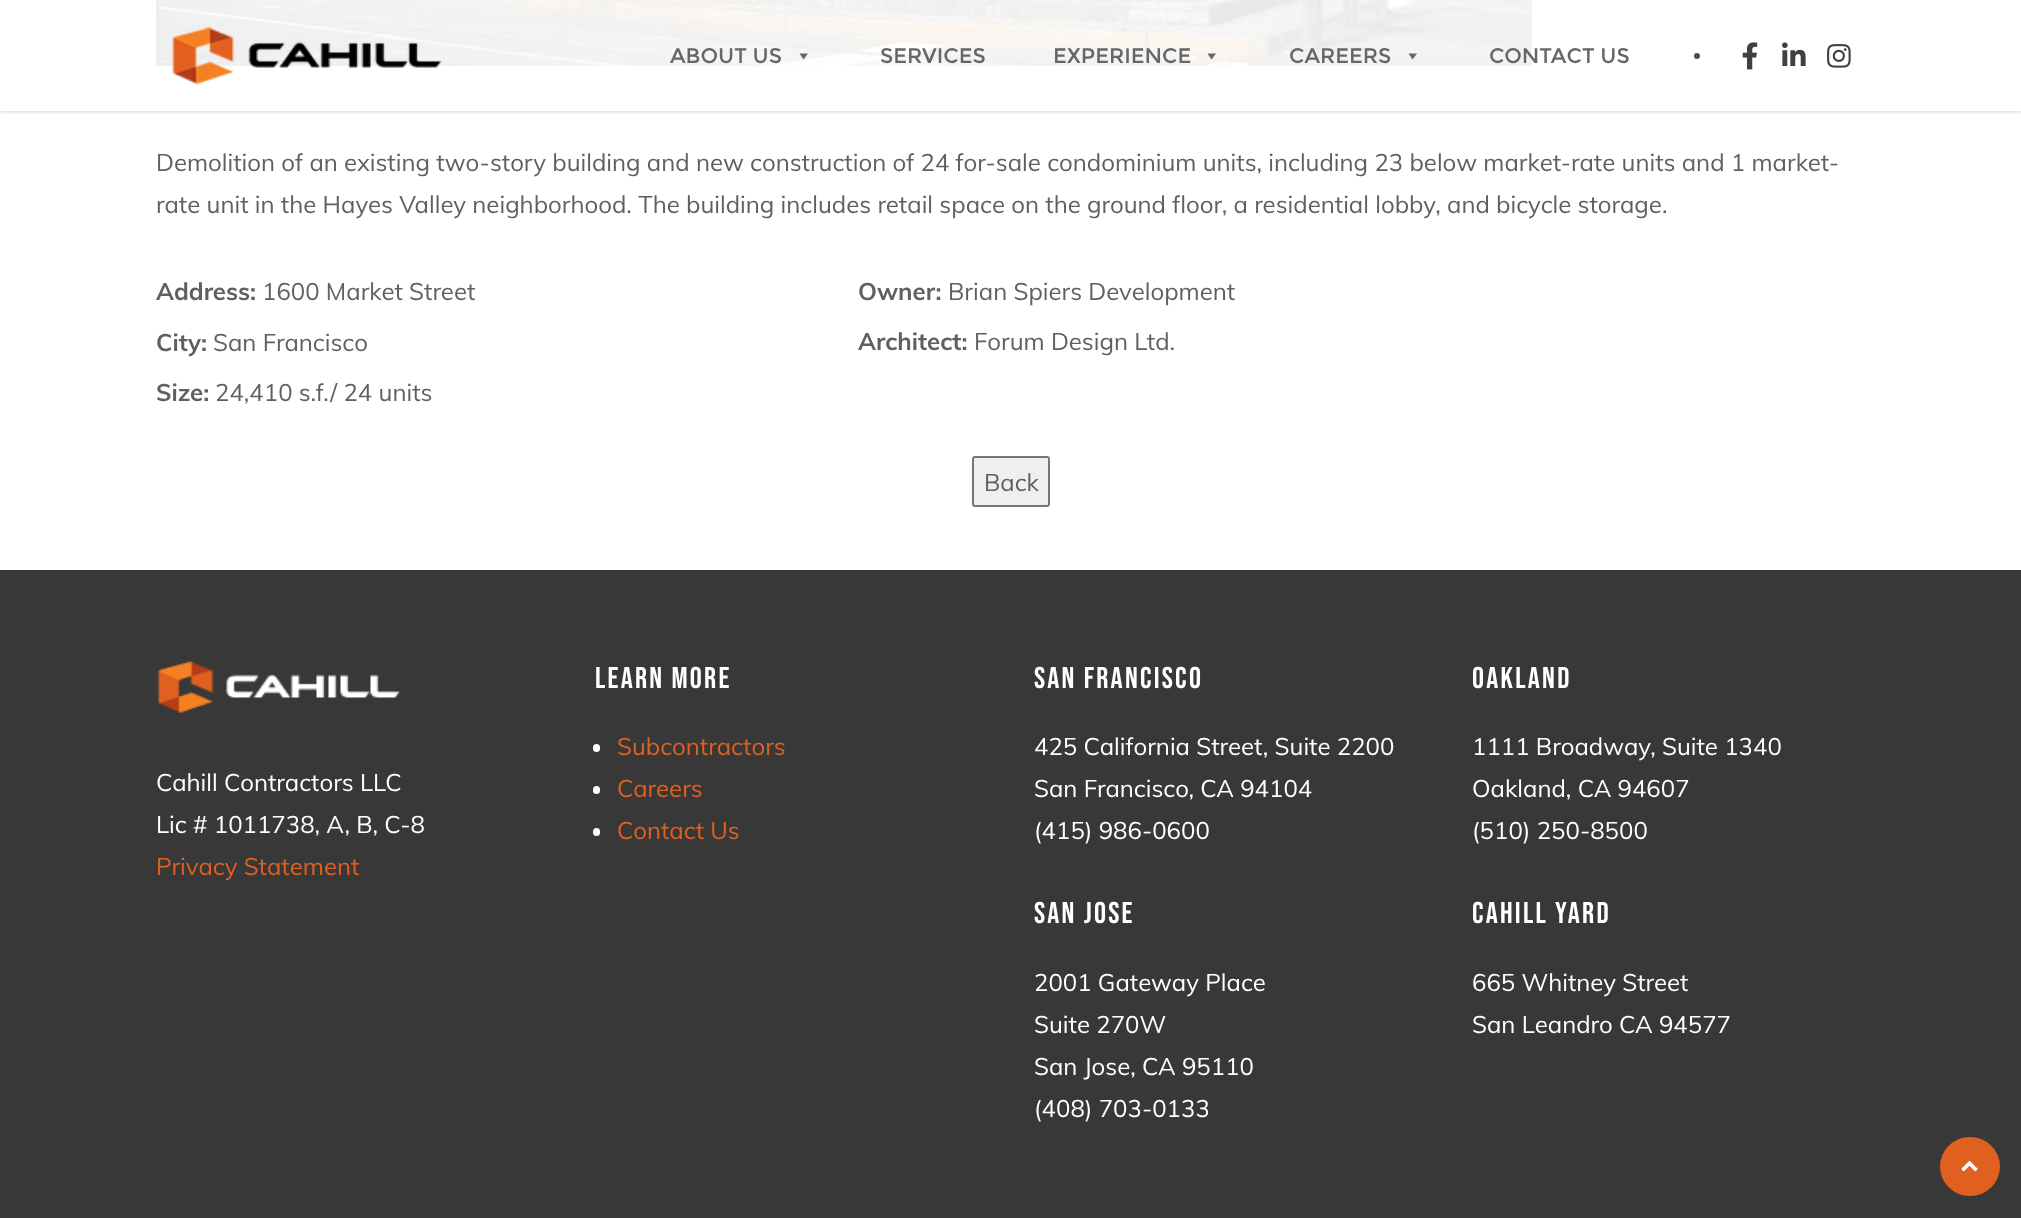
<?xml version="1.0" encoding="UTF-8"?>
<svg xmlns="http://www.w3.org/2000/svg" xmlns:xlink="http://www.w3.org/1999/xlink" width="2021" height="1218">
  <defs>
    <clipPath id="clip1"><rect x="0" y="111" width="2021" height="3" /></clipPath>
  </defs>
  <rect width="100%" height="100%" fill="#ffffff" />
  <image x="156" y="0" width="1376" height="66" xlink:href="image5.png" />
  <g clip-path="url(#clip1)">
    <rect y="2" width="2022" height="111" fill="#000000" fill-opacity="0.1" filter="blur(1.5px)" />
  </g>
  <image x="172" y="26" width="270" height="59" xlink:href="image1.png" />
  <path d="M 808 53.5 l -4.5 6 l -4 -6 z" fill="#666666" />
  <path d="M 1216 53.5 l -4.5 6 l -4 -6 z" fill="#666666" />
  <path d="M 1417 53.5 l -4.5 6 l -4 -6 z" fill="#666666" />
  <circle cx="1697" cy="56" r="3" fill="#4d4d4d" />
  <image x="1742" y="42" width="16" height="28" xlink:href="image2.png" />
  <image x="1782" y="42" width="24" height="24" xlink:href="image3.png" />
  <image x="1827" y="44" width="24" height="24" xlink:href="image4.png" />
  <rect x="973" y="457" width="76" height="49" rx="2" fill="#efefef" stroke="#767676" stroke-width="2" />
  <rect y="570" width="2021" height="648" fill="#383838" />
  <image x="157" y="661" width="243" height="52" xlink:href="image6.png" />
  <rect x="593" y="744" width="7" height="8" rx="3.5" fill="#ffffff" />
  <rect x="593" y="786" width="7" height="8" rx="3.5" fill="#ffffff" />
  <rect x="593" y="828" width="7" height="8" rx="3.5" fill="#ffffff" />
  <rect x="1940" y="1137" width="60" height="59" rx="29.5" fill="#e0601f" />
  <image x="1961" y="1160" width="17" height="12" xlink:href="image7.png" />
  <text x="670" y="63" style="font-family: Montserrat; font-size: 21px; fill: #666666">ABOUT US</text>
  <text x="880" y="63" style="font-family: Montserrat; font-size: 21px; fill: #666666">SERVICES</text>
  <text x="1053" y="63" style="font-family: Montserrat; font-size: 21px; fill: #666666">EXPERIENCE</text>
  <text x="1289" y="63" style="font-family: Montserrat; font-size: 21px; fill: #666666">CAREERS</text>
  <text x="1489" y="63" style="font-family: Montserrat; font-size: 21px; fill: #666666">CONTACT US</text>
  <text x="156" y="171" style="font-family: Muli; font-size: 24px; fill: #606060">Demolition of an existing two-story building and new construction of 24 for-sale condominium units, including 23 below market-rate units and 1 market-</text>
  <text x="156" y="213" style="font-family: Muli; font-size: 24px; fill: #606060">rate unit in the Hayes Valley neighborhood. The building includes retail space on the ground floor, a residential lobby, and bicycle storage.</text>
  <text x="156" y="300" style="font-family: Muli; font-size: 24px; font-weight: bold; fill: #606060">Address:</text>
  <text x="262" y="300" style="font-family: Muli; font-size: 24px; fill: #606060">1600 Market Street</text>
  <text x="156" y="351" style="font-family: Muli; font-size: 24px; font-weight: bold; fill: #606060">City:</text>
  <text x="213" y="351" style="font-family: Muli; font-size: 24px; fill: #606060">San Francisco</text>
  <text x="156" y="401" style="font-family: Muli; font-size: 24px; font-weight: bold; fill: #606060">Size:</text>
  <text x="215" y="401" style="font-family: Muli; font-size: 24px; fill: #606060">24,410 s.f./ 24 units</text>
  <text x="858" y="300" style="font-family: Muli; font-size: 24px; font-weight: bold; fill: #606060">Owner:</text>
  <text x="948" y="300" style="font-family: Muli; font-size: 24px; fill: #606060">Brian Spiers Development</text>
  <text x="858" y="350" style="font-family: Muli; font-size: 24px; font-weight: bold; fill: #606060">Architect:</text>
  <text x="974" y="350" style="font-family: Muli; font-size: 24px; fill: #606060">Forum Design Ltd.</text>
  <text x="984" y="491" style="font-family: Muli; font-size: 24px; fill: #606060">Back</text>
  <text x="156" y="791" style="font-family: Muli; font-size: 24px; fill: #ffffff">Cahill Contractors LLC</text>
  <text x="156" y="833" style="font-family: Muli; font-size: 24px; fill: #ffffff">Lic # 1011738, A, B, C-8</text>
  <text x="156" y="875" style="font-family: Muli; font-size: 24px; fill: #e0601f">Privacy Statement</text>
  <text x="595" y="688" style="font-family: Bebas Neue; font-size: 30px; letter-spacing: 2.25px; fill: #ffffff">LEARN MORE</text>
  <text x="617" y="755" style="font-family: Muli; font-size: 24px; fill: #e0601f">Subcontractors</text>
  <text x="617" y="797" style="font-family: Muli; font-size: 24px; fill: #e0601f">Careers</text>
  <text x="617" y="839" style="font-family: Muli; font-size: 24px; fill: #e0601f">Contact Us</text>
  <text x="1034" y="688" style="font-family: Bebas Neue; font-size: 30px; letter-spacing: 2.25px; fill: #ffffff">SAN FRANCISCO</text>
  <text x="1034" y="755" style="font-family: Muli; font-size: 24px; fill: #ffffff">425 California Street, Suite 2200</text>
  <text x="1034" y="797" style="font-family: Muli; font-size: 24px; fill: #ffffff">San Francisco, CA 94104</text>
  <text x="1034" y="839" style="font-family: Muli; font-size: 24px; fill: #ffffff">(415) 986-0600</text>
  <text x="1034" y="923" style="font-family: Bebas Neue; font-size: 30px; letter-spacing: 2.25px; fill: #ffffff">SAN JOSE</text>
  <text x="1034" y="991" style="font-family: Muli; font-size: 24px; fill: #ffffff">2001 Gateway Place</text>
  <text x="1034" y="1033" style="font-family: Muli; font-size: 24px; fill: #ffffff">Suite 270W</text>
  <text x="1034" y="1075" style="font-family: Muli; font-size: 24px; fill: #ffffff">San Jose, CA 95110</text>
  <text x="1034" y="1117" style="font-family: Muli; font-size: 24px; fill: #ffffff">(408) 703-0133</text>
  <text x="1472" y="688" style="font-family: Bebas Neue; font-size: 30px; letter-spacing: 2.25px; fill: #ffffff">OAKLAND</text>
  <text x="1472" y="755" style="font-family: Muli; font-size: 24px; fill: #ffffff">1111 Broadway, Suite 1340</text>
  <text x="1472" y="797" style="font-family: Muli; font-size: 24px; fill: #ffffff">Oakland, CA 94607</text>
  <text x="1472" y="839" style="font-family: Muli; font-size: 24px; fill: #ffffff">(510) 250-8500</text>
  <text x="1472" y="923" style="font-family: Bebas Neue; font-size: 30px; letter-spacing: 2.25px; fill: #ffffff">CAHILL YARD</text>
  <text x="1472" y="991" style="font-family: Muli; font-size: 24px; fill: #ffffff">665 Whitney Street</text>
  <text x="1472" y="1033" style="font-family: Muli; font-size: 24px; fill: #ffffff">San Leandro CA 94577</text>
</svg>
